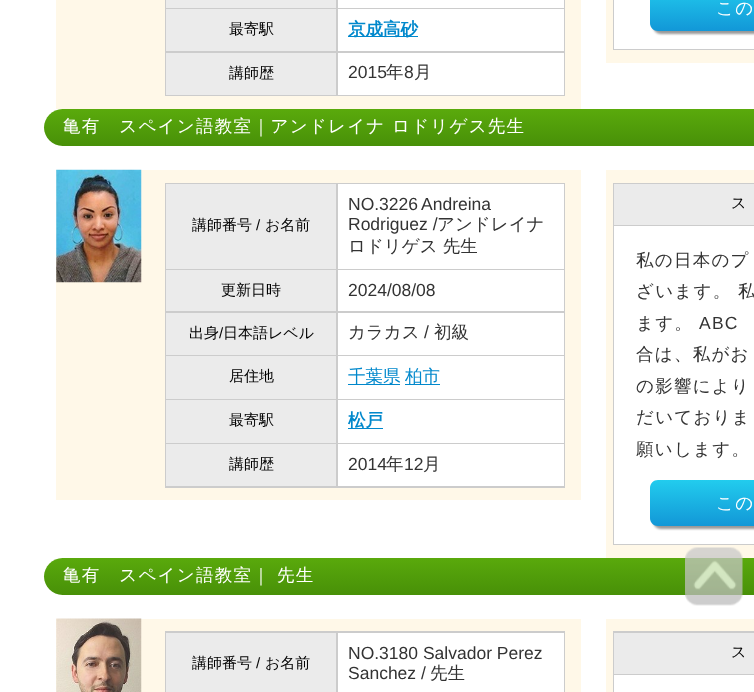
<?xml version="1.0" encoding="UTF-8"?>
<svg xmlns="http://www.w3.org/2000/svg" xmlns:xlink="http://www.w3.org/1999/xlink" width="754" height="692">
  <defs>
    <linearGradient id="g1" gradientUnits="userSpaceOnUse" x1="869" y1="-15" x2="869" y2="31"><stop offset="0" stop-color="#22ccee" /><stop offset="1" stop-color="#1297d7" /></linearGradient>
    <linearGradient id="g2" gradientUnits="userSpaceOnUse" x1="594" y1="109" x2="594" y2="146"><stop offset="0" stop-color="#5aaa0c" /><stop offset="1" stop-color="#489008" /></linearGradient>
    <linearGradient id="g3" gradientUnits="userSpaceOnUse" x1="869" y1="480" x2="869" y2="526"><stop offset="0" stop-color="#22ccee" /><stop offset="1" stop-color="#1297d7" /></linearGradient>
    <linearGradient id="g4" gradientUnits="userSpaceOnUse" x1="594" y1="557" x2="594" y2="595"><stop offset="0" stop-color="#5aaa0c" /><stop offset="1" stop-color="#489008" /></linearGradient>
  </defs>
  <rect width="100%" height="100%" fill="#ffffff" />
  <rect x="606" width="148" height="63" fill="#fff8e8" />
  <rect x="613" width="141" height="50" fill="#cccccc" />
  <rect x="614" width="140" height="49" fill="#ffffff" />
  <rect x="653" y="-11" width="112" height="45" rx="8" fill="#000000" fill-opacity="0.4" filter="blur(1px)" />
  <path d="M 658 -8 h 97 v 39 h -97 c -4.5 0 -8 -3.5 -8 -8 v -23 c 0 -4.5 3.5 -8 8 -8 z" fill="url(#g1)" />
  <rect x="56" width="525" height="109" fill="#fff8e8" />
  <rect x="165" width="400" height="96" fill="#cccccc" />
  <rect x="166" width="170" height="8" fill="#ebebeb" />
  <rect x="338" width="226" height="8" fill="#ffffff" />
  <rect x="166" y="9" width="170" height="42" fill="#ebebeb" />
  <rect x="338" y="9" width="226" height="42" fill="#ffffff" />
  <rect x="348" y="36" width="70" height="1" fill="#0088cc" />
  <rect x="166" y="53" width="170" height="42" fill="#ebebeb" />
  <rect x="338" y="53" width="226" height="42" fill="#ffffff" />
  <path d="M 62.5 109 h 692.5 v 37 h -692.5 c -10 0 -18.5 -8.5 -18.5 -18.5 c 0 -10 8.5 -18.5 18.5 -18.5 z" fill="url(#g2)" />
  <rect x="56" y="170" width="525" height="330" fill="#fff8e8" />
  <image x="56" y="169" width="86" height="114" xlink:href="image1.png" />
  <rect x="165" y="183" width="400" height="305" fill="#cccccc" />
  <rect x="166" y="184" width="170" height="85" fill="#ebebeb" />
  <rect x="338" y="184" width="226" height="85" fill="#ffffff" />
  <rect x="166" y="270" width="170" height="41" fill="#ebebeb" />
  <rect x="338" y="270" width="226" height="41" fill="#ffffff" />
  <rect x="166" y="313" width="170" height="42" fill="#ebebeb" />
  <rect x="338" y="313" width="226" height="42" fill="#ffffff" />
  <rect x="166" y="356" width="170" height="43" fill="#ebebeb" />
  <rect x="338" y="356" width="226" height="43" fill="#ffffff" />
  <rect x="348" y="384" width="52" height="1" fill="#0088cc" />
  <rect x="405" y="384" width="35" height="1" fill="#0088cc" />
  <rect x="166" y="400" width="170" height="43" fill="#ebebeb" />
  <rect x="338" y="400" width="226" height="43" fill="#ffffff" />
  <rect x="348" y="428" width="35" height="1" fill="#0088cc" />
  <rect x="166" y="444" width="170" height="42" fill="#ebebeb" />
  <rect x="338" y="444" width="226" height="42" fill="#ffffff" />
  <rect x="606" y="170" width="148" height="388" fill="#fff8e8" />
  <rect x="613" y="183" width="141" height="362" fill="#cccccc" />
  <rect x="614" y="184" width="140" height="41" fill="#ebebeb" />
  <rect x="614" y="226" width="140" height="318" fill="#ffffff" />
  <rect x="653" y="483" width="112" height="46" rx="8" fill="#000000" fill-opacity="0.4" filter="blur(1px)" />
  <path d="M 658 480 h 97 v 46 h -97 c -4.5 0 -8 -3.5 -8 -8 v -30 c 0 -4.5 3.5 -8 8 -8 z" fill="url(#g3)" />
  <path d="M 62.5 558 h 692.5 v 37 h -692.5 c -10 0 -18.5 -8.5 -18.5 -18.5 c 0 -10 8.5 -18.5 18.5 -18.5 z" fill="url(#g4)" />
  <rect x="56" y="619" width="525" height="73" fill="#fff8e8" />
  <image x="56" y="618" width="86" height="74" xlink:href="image2.png" />
  <rect x="165" y="631" width="400" height="61" fill="#cccccc" />
  <rect x="166" y="633" width="170" height="59" fill="#ebebeb" />
  <rect x="338" y="633" width="226" height="59" fill="#ffffff" />
  <rect x="606" y="619" width="148" height="73" fill="#fff8e8" />
  <rect x="613" y="631" width="141" height="61" fill="#cccccc" />
  <rect x="614" y="633" width="140" height="41" fill="#ebebeb" />
  <rect x="614" y="675" width="140" height="17" fill="#ffffff" />
  <image x="685" y="547" width="58" height="59" xlink:href="image3.png" />
  <text x="716" y="14" style="font-family: WenQuanYi Zen Hei; font-size: 17.5px; font-weight: 500; letter-spacing: 1.25px; fill: #ffffff">この</text>
  <text x="229" y="34" style="font-family: WenQuanYi Zen Hei; font-size: 15px; font-weight: 500; fill: #000000">最寄駅</text>
  <text x="348" y="35" style="font-family: WenQuanYi Zen Hei; font-size: 17.5px; font-weight: bold; fill: #0088cc">京成高砂</text>
  <text x="229" y="78" style="font-family: WenQuanYi Zen Hei; font-size: 15px; font-weight: 500; fill: #000000">講師歴</text>
  <text x="348" y="78" style="font-family: Liberation Sans; font-size: 17.5px; fill: #333333">2015</text>
  <text x="386" y="78" style="font-family: WenQuanYi Zen Hei; font-size: 17.5px; font-weight: 500; fill: #333333">年</text>
  <text x="404" y="78" style="font-family: Liberation Sans; font-size: 17.5px; fill: #333333">8</text>
  <text x="414" y="78" style="font-family: WenQuanYi Zen Hei; font-size: 17.5px; font-weight: 500; fill: #333333">月</text>
  <text x="63" y="132" style="font-family: WenQuanYi Zen Hei; font-size: 17.5px; font-weight: 500; letter-spacing: 1.25px; fill: #ffffff">亀有　スペイン語教室｜アンドレイナ ロドリゲス先生</text>
  <text x="192" y="230" style="font-family: WenQuanYi Zen Hei; font-size: 15px; font-weight: 500; fill: #000000">講師番号</text>
  <text x="256" y="230" style="font-family: Liberation Sans; font-size: 15px; fill: #000000">/</text>
  <text x="265" y="230" style="font-family: WenQuanYi Zen Hei; font-size: 15px; font-weight: 500; fill: #000000">お名前</text>
  <text x="348" y="210" style="font-family: Liberation Sans; font-size: 17.5px; fill: #333333">NO.3226</text>
  <text x="421" y="210" style="font-family: Liberation Sans; font-size: 17.5px; fill: #333333">Andreina</text>
  <text x="348" y="230" style="font-family: Liberation Sans; font-size: 17.5px; fill: #333333">Rodriguez /</text>
  <text x="437" y="230" style="font-family: WenQuanYi Zen Hei; font-size: 17.5px; font-weight: 500; fill: #333333">アンドレイナ</text>
  <text x="348" y="252" style="font-family: WenQuanYi Zen Hei; font-size: 17.5px; font-weight: 500; fill: #333333">ロドリゲス 先生</text>
  <text x="221" y="295" style="font-family: WenQuanYi Zen Hei; font-size: 15px; font-weight: 500; fill: #000000">更新日時</text>
  <text x="348" y="296" style="font-family: Liberation Sans; font-size: 17.5px; fill: #333333">2024/08/08</text>
  <text x="189" y="338" style="font-family: WenQuanYi Zen Hei; font-size: 15px; font-weight: 500; fill: #000000">出身</text>
  <text x="219" y="338" style="font-family: Liberation Sans; font-size: 15px; fill: #000000">/</text>
  <text x="223" y="338" style="font-family: WenQuanYi Zen Hei; font-size: 15px; font-weight: 500; fill: #000000">日本語レベル</text>
  <text x="348" y="338" style="font-family: WenQuanYi Zen Hei; font-size: 17.5px; font-weight: 500; fill: #333333">カラカス</text>
  <text x="424" y="338" style="font-family: Liberation Sans; font-size: 17.5px; fill: #333333">/</text>
  <text x="434" y="338" style="font-family: WenQuanYi Zen Hei; font-size: 17.5px; font-weight: 500; fill: #333333">初級</text>
  <text x="229" y="381" style="font-family: WenQuanYi Zen Hei; font-size: 15px; font-weight: 500; fill: #000000">居住地</text>
  <text x="348" y="382" style="font-family: WenQuanYi Zen Hei; font-size: 17.5px; font-weight: 500; fill: #0088cc">千葉県</text>
  <text x="405" y="382" style="font-family: WenQuanYi Zen Hei; font-size: 17.5px; font-weight: 500; fill: #0088cc">柏市</text>
  <text x="229" y="425" style="font-family: WenQuanYi Zen Hei; font-size: 15px; font-weight: 500; fill: #000000">最寄駅</text>
  <text x="348" y="426" style="font-family: WenQuanYi Zen Hei; font-size: 17.5px; font-weight: bold; fill: #0088cc">松戸</text>
  <text x="229" y="469" style="font-family: WenQuanYi Zen Hei; font-size: 15px; font-weight: 500; fill: #000000">講師歴</text>
  <text x="348" y="470" style="font-family: Liberation Sans; font-size: 17.5px; fill: #333333">2014</text>
  <text x="386" y="470" style="font-family: WenQuanYi Zen Hei; font-size: 17.5px; font-weight: 500; fill: #333333">年</text>
  <text x="404" y="470" style="font-family: Liberation Sans; font-size: 17.5px; fill: #333333">12</text>
  <text x="423" y="470" style="font-family: WenQuanYi Zen Hei; font-size: 17.5px; font-weight: 500; fill: #333333">月</text>
  <text x="731" y="208" style="font-family: WenQuanYi Zen Hei; font-size: 15px; font-weight: 500; fill: #000000">ス</text>
  <text x="636" y="266" style="font-family: WenQuanYi Zen Hei; font-size: 17.5px; font-weight: 500; letter-spacing: 1.25px; fill: #333333">私の日本のプ</text>
  <text x="636" y="297" style="font-family: WenQuanYi Zen Hei; font-size: 17.5px; font-weight: 500; letter-spacing: 1.25px; fill: #333333">ざいます。 私</text>
  <text x="636" y="329" style="font-family: WenQuanYi Zen Hei; font-size: 17.5px; font-weight: 500; letter-spacing: 1.25px; fill: #333333">ます。</text>
  <text x="699" y="329" style="font-family: Liberation Sans; font-size: 17.5px; letter-spacing: 1.25px; fill: #333333">ABC</text>
  <text x="636" y="360" style="font-family: WenQuanYi Zen Hei; font-size: 17.5px; font-weight: 500; letter-spacing: 1.25px; fill: #333333">合は、私がお</text>
  <text x="636" y="392" style="font-family: WenQuanYi Zen Hei; font-size: 17.5px; font-weight: 500; letter-spacing: 1.25px; fill: #333333">の影響により</text>
  <text x="636" y="423" style="font-family: WenQuanYi Zen Hei; font-size: 17.5px; font-weight: 500; letter-spacing: 1.25px; fill: #333333">だいておりま</text>
  <text x="636" y="455" style="font-family: WenQuanYi Zen Hei; font-size: 17.5px; font-weight: 500; letter-spacing: 1.25px; fill: #333333">願いします。</text>
  <text x="716" y="509" style="font-family: WenQuanYi Zen Hei; font-size: 17.5px; font-weight: 500; letter-spacing: 1.25px; fill: #ffffff">この</text>
  <text x="63" y="581" style="font-family: WenQuanYi Zen Hei; font-size: 17.5px; font-weight: 500; letter-spacing: 1.25px; fill: #ffffff">亀有　スペイン語教室｜ 先生</text>
  <text x="192" y="668" style="font-family: WenQuanYi Zen Hei; font-size: 15px; font-weight: 500; fill: #000000">講師番号</text>
  <text x="256" y="668" style="font-family: Liberation Sans; font-size: 15px; fill: #000000">/</text>
  <text x="265" y="668" style="font-family: WenQuanYi Zen Hei; font-size: 15px; font-weight: 500; fill: #000000">お名前</text>
  <text x="348" y="659" style="font-family: Liberation Sans; font-size: 17.5px; fill: #333333">NO.3180 Salvador Perez</text>
  <text x="348" y="679" style="font-family: Liberation Sans; font-size: 17.5px; fill: #333333">Sanchez /</text>
  <text x="430" y="679" style="font-family: WenQuanYi Zen Hei; font-size: 17.5px; font-weight: 500; fill: #333333">先生</text>
  <text x="731" y="657" style="font-family: WenQuanYi Zen Hei; font-size: 15px; font-weight: 500; fill: #000000">ス</text>
</svg>
